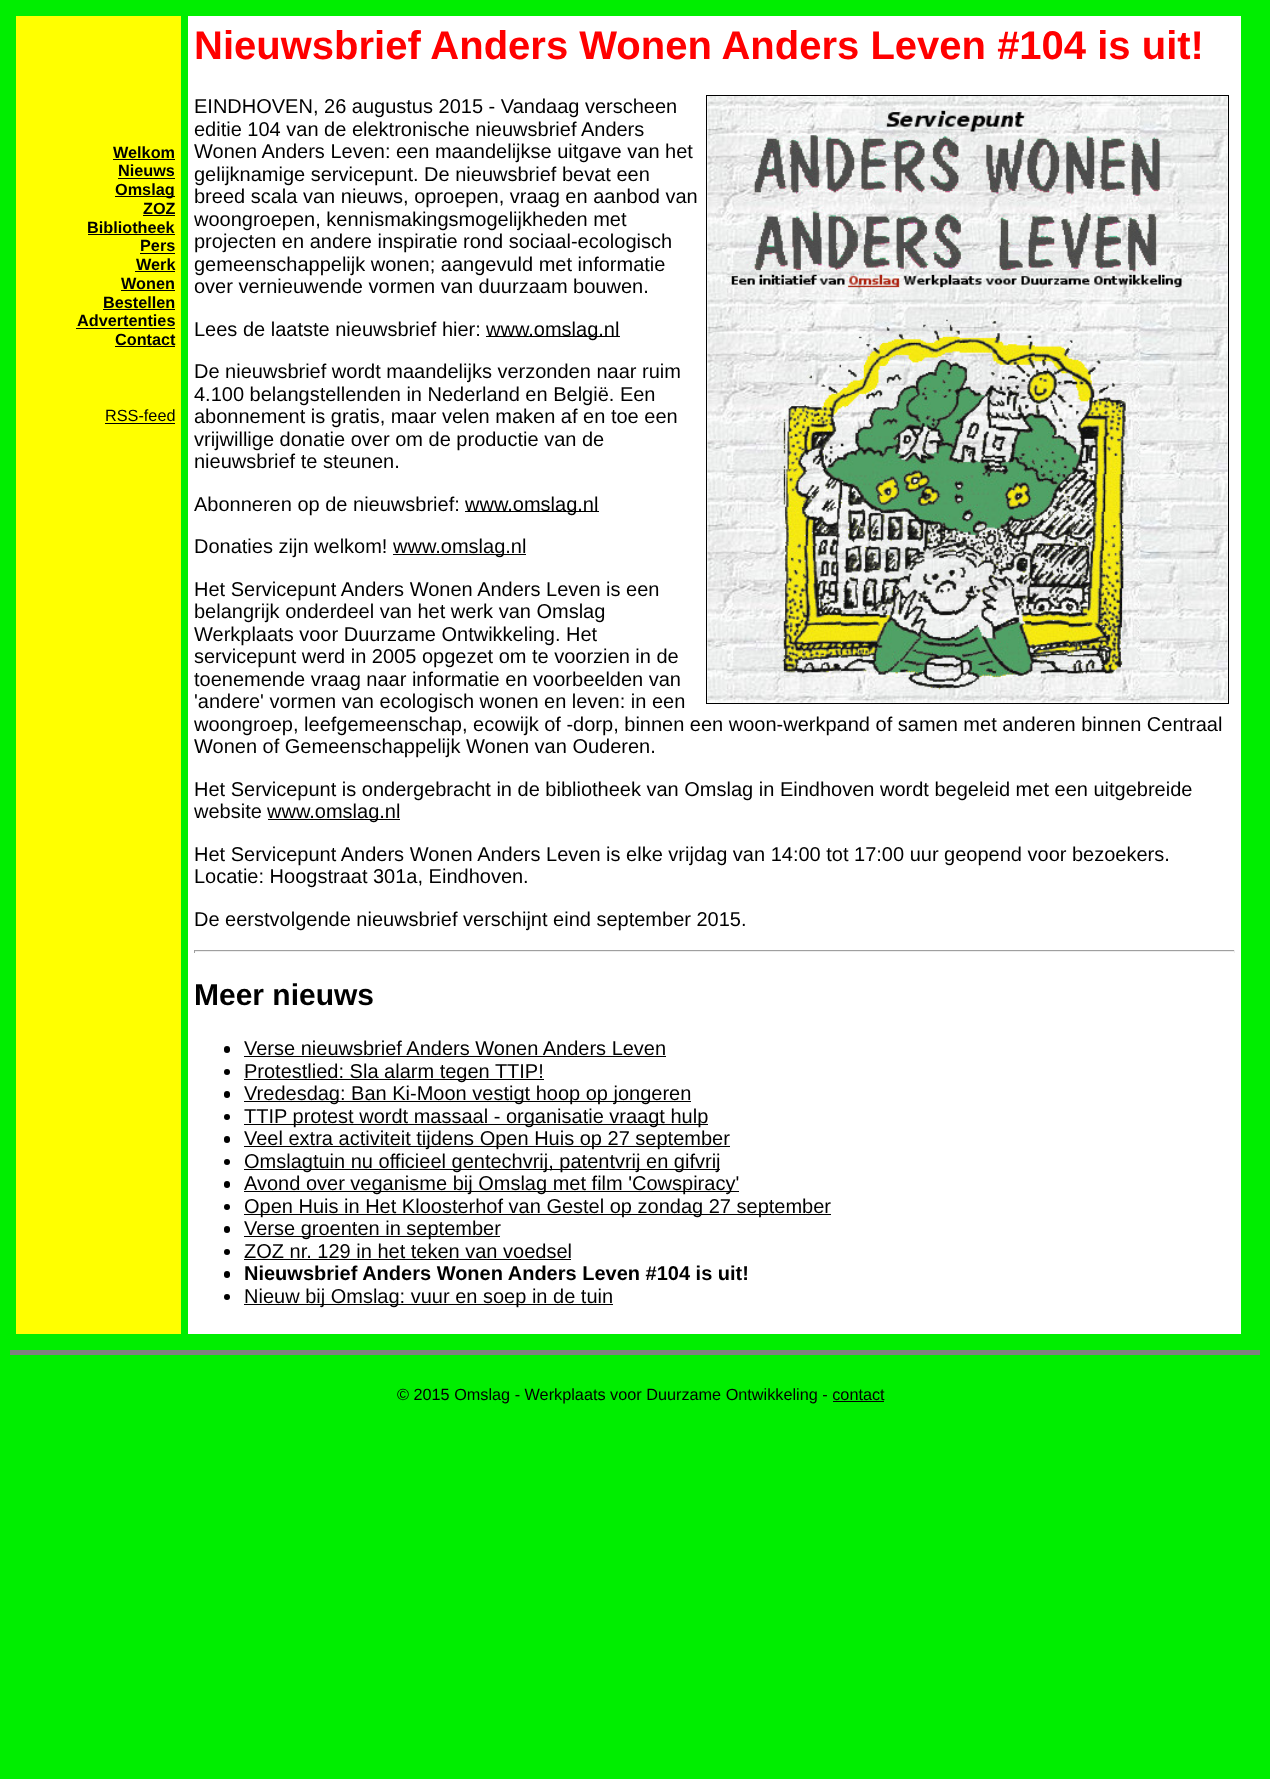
<?xml version="1.0" encoding="UTF-8"?>
<svg xmlns="http://www.w3.org/2000/svg" xmlns:xlink="http://www.w3.org/1999/xlink" width="1270" height="1779">
  <rect width="100%" height="100%" fill="#00ee00" />
  <rect x="16" y="16" width="165" height="1318" fill="#ffff00" />
  <rect x="113" y="159" width="62" height="1" fill="#000000" />
  <rect x="118" y="178" width="57" height="1" fill="#000000" />
  <rect x="115" y="196" width="60" height="1" fill="#000000" />
  <rect x="143" y="215" width="32" height="1" fill="#000000" />
  <rect x="88" y="234" width="87" height="1" fill="#000000" />
  <rect x="140" y="253" width="35" height="1" fill="#000000" />
  <rect x="135" y="271" width="40" height="1" fill="#000000" />
  <rect x="121" y="290" width="54" height="1" fill="#000000" />
  <rect x="103" y="309" width="72" height="1" fill="#000000" />
  <rect x="76" y="328" width="99" height="1" fill="#000000" />
  <rect x="115" y="346" width="60" height="1" fill="#000000" />
  <rect x="105" y="423" width="70" height="1" fill="#000000" />
  <rect x="188" y="16" width="1053" height="1318" fill="#ffffff" />
  <rect x="706.5" y="95.5" width="522" height="608" fill="none" stroke="#000000" />
  <image x="707" y="96" width="521" height="607" xlink:href="image1.png" />
  <rect x="486" y="336" width="134" height="1" fill="#000000" />
  <rect x="465" y="511" width="134" height="1" fill="#000000" />
  <rect x="393" y="554" width="133" height="1" fill="#000000" />
  <rect x="268" y="819" width="132" height="1" fill="#000000" />
  <rect x="194" y="950" width="1041" height="1" fill="#9f9f9f" />
  <rect x="1234" y="950" width="1" height="3" fill="#eeeeee" />
  <rect x="194" y="951" width="1041" height="1" fill="#eeeeee" />
  <rect x="194" y="950" width="1" height="3" fill="#9f9f9f" />
  <rect x="224" y="1046" width="6" height="7" rx="3" fill="#000000" />
  <rect x="244" y="1056" width="422" height="1" fill="#000000" />
  <circle cx="227" cy="1072" r="3" fill="#000000" />
  <rect x="244" y="1079" width="300" height="1" fill="#000000" />
  <rect x="224" y="1091" width="6" height="7" rx="3" fill="#000000" />
  <rect x="244" y="1101" width="447" height="1" fill="#000000" />
  <circle cx="227" cy="1117" r="3" fill="#000000" />
  <rect x="244" y="1124" width="464" height="1" fill="#000000" />
  <rect x="224" y="1136" width="6" height="7" rx="3" fill="#000000" />
  <rect x="244" y="1146" width="486" height="1" fill="#000000" />
  <circle cx="227" cy="1162" r="3" fill="#000000" />
  <rect x="244" y="1169" width="476" height="1" fill="#000000" />
  <rect x="224" y="1181" width="6" height="7" rx="3" fill="#000000" />
  <rect x="244" y="1191" width="495" height="1" fill="#000000" />
  <circle cx="227" cy="1207" r="3" fill="#000000" />
  <rect x="244" y="1214" width="587" height="1" fill="#000000" />
  <rect x="224" y="1226" width="6" height="7" rx="3" fill="#000000" />
  <rect x="244" y="1236" width="256" height="1" fill="#000000" />
  <circle cx="227" cy="1252" r="3" fill="#000000" />
  <rect x="244" y="1259" width="327" height="1" fill="#000000" />
  <rect x="224" y="1271" width="6" height="7" rx="3" fill="#000000" />
  <circle cx="227" cy="1297" r="3" fill="#000000" />
  <rect x="244" y="1304" width="369" height="1" fill="#000000" />
  <rect x="10" y="1350" width="1250" height="5" fill="#808080" />
  <rect x="833" y="1401" width="51" height="1" fill="#000000" />
  <text x="113" y="158" style="font-family: Liberation Sans; font-size: 16.25px; font-weight: bold; fill: #000000">Welkom</text>
  <text x="118" y="176" style="font-family: Liberation Sans; font-size: 16.25px; font-weight: bold; fill: #000000">Nieuws</text>
  <text x="115" y="195" style="font-family: Liberation Sans; font-size: 16.25px; font-weight: bold; fill: #000000">Omslag</text>
  <text x="143" y="214" style="font-family: Liberation Sans; font-size: 16.25px; font-weight: bold; fill: #000000">ZOZ</text>
  <text x="87" y="233" style="font-family: Liberation Sans; font-size: 16.25px; font-weight: bold; fill: #000000">Bibliotheek</text>
  <text x="140" y="251" style="font-family: Liberation Sans; font-size: 16.25px; font-weight: bold; fill: #000000">Pers</text>
  <text x="136" y="270" style="font-family: Liberation Sans; font-size: 16.25px; font-weight: bold; fill: #000000">Werk</text>
  <text x="121" y="289" style="font-family: Liberation Sans; font-size: 16.25px; font-weight: bold; fill: #000000">Wonen</text>
  <text x="103" y="308" style="font-family: Liberation Sans; font-size: 16.25px; font-weight: bold; fill: #000000">Bestellen</text>
  <text x="77" y="326" style="font-family: Liberation Sans; font-size: 16.25px; font-weight: bold; fill: #000000">Advertenties</text>
  <text x="115" y="345" style="font-family: Liberation Sans; font-size: 16.25px; font-weight: bold; fill: #000000">Contact</text>
  <text x="105" y="421" style="font-family: Liberation Sans; font-size: 16.25px; fill: #000000">RSS-feed</text>
  <text x="194" y="59" style="font-family: Liberation Sans; font-size: 40px; font-weight: bold; fill: #ff0000">Nieuwsbrief Anders Wonen Anders Leven #104 is uit!</text>
  <text x="194" y="113" style="font-family: Liberation Sans; font-size: 20px; fill: #000000">EINDHOVEN, 26 augustus 2015 - Vandaag verscheen</text>
  <text x="194" y="136" style="font-family: Liberation Sans; font-size: 20px; fill: #000000">editie 104 van de elektronische nieuwsbrief Anders</text>
  <text x="194" y="158" style="font-family: Liberation Sans; font-size: 20px; fill: #000000">Wonen Anders Leven: een maandelijkse uitgave van het</text>
  <text x="194" y="181" style="font-family: Liberation Sans; font-size: 20px; fill: #000000">gelijknamige servicepunt. De nieuwsbrief bevat een</text>
  <text x="194" y="203" style="font-family: Liberation Sans; font-size: 20px; fill: #000000">breed scala van nieuws, oproepen, vraag en aanbod van</text>
  <text x="194" y="226" style="font-family: Liberation Sans; font-size: 20px; fill: #000000">woongroepen, kennismakingsmogelijkheden met</text>
  <text x="194" y="248" style="font-family: Liberation Sans; font-size: 20px; fill: #000000">projecten en andere inspiratie rond sociaal-ecologisch</text>
  <text x="194" y="271" style="font-family: Liberation Sans; font-size: 20px; fill: #000000">gemeenschappelijk wonen; aangevuld met informatie</text>
  <text x="194" y="293" style="font-family: Liberation Sans; font-size: 20px; fill: #000000">over vernieuwende vormen van duurzaam bouwen.</text>
  <text x="194" y="336" style="font-family: Liberation Sans; font-size: 20px; fill: #000000">Lees de laatste nieuwsbrief hier:</text>
  <text x="486" y="336" style="font-family: Liberation Sans; font-size: 20px; fill: #000000">www.omslag.nl</text>
  <text x="194" y="378" style="font-family: Liberation Sans; font-size: 20px; fill: #000000">De nieuwsbrief wordt maandelijks verzonden naar ruim</text>
  <text x="194" y="401" style="font-family: Liberation Sans; font-size: 20px; fill: #000000">4.100 belangstellenden in Nederland en België. Een</text>
  <text x="194" y="423" style="font-family: Liberation Sans; font-size: 20px; fill: #000000">abonnement is gratis, maar velen maken af en toe een</text>
  <text x="194" y="446" style="font-family: Liberation Sans; font-size: 20px; fill: #000000">vrijwillige donatie over om de productie van de</text>
  <text x="194" y="468" style="font-family: Liberation Sans; font-size: 20px; fill: #000000">nieuwsbrief te steunen.</text>
  <text x="194" y="511" style="font-family: Liberation Sans; font-size: 20px; fill: #000000">Abonneren op de nieuwsbrief:</text>
  <text x="465" y="511" style="font-family: Liberation Sans; font-size: 20px; fill: #000000">www.omslag.nl</text>
  <text x="194" y="553" style="font-family: Liberation Sans; font-size: 20px; fill: #000000">Donaties zijn welkom!</text>
  <text x="393" y="553" style="font-family: Liberation Sans; font-size: 20px; fill: #000000">www.omslag.nl</text>
  <text x="194" y="596" style="font-family: Liberation Sans; font-size: 20px; fill: #000000">Het Servicepunt Anders Wonen Anders Leven is een</text>
  <text x="194" y="618" style="font-family: Liberation Sans; font-size: 20px; fill: #000000">belangrijk onderdeel van het werk van Omslag</text>
  <text x="194" y="641" style="font-family: Liberation Sans; font-size: 20px; fill: #000000">Werkplaats voor Duurzame Ontwikkeling. Het</text>
  <text x="194" y="663" style="font-family: Liberation Sans; font-size: 20px; fill: #000000">servicepunt werd in 2005 opgezet om te voorzien in de</text>
  <text x="194" y="686" style="font-family: Liberation Sans; font-size: 20px; fill: #000000">toenemende vraag naar informatie en voorbeelden van</text>
  <text x="194" y="708" style="font-family: Liberation Sans; font-size: 20px; fill: #000000">'andere' vormen van ecologisch wonen en leven: in een</text>
  <text x="194" y="731" style="font-family: Liberation Sans; font-size: 20px; fill: #000000">woongroep, leefgemeenschap, ecowijk of -dorp, binnen een woon-werkpand of samen met anderen binnen Centraal</text>
  <text x="194" y="753" style="font-family: Liberation Sans; font-size: 20px; fill: #000000">Wonen of Gemeenschappelijk Wonen van Ouderen.</text>
  <text x="194" y="796" style="font-family: Liberation Sans; font-size: 20px; fill: #000000">Het Servicepunt is ondergebracht in de bibliotheek van Omslag in Eindhoven wordt begeleid met een uitgebreide</text>
  <text x="194" y="818" style="font-family: Liberation Sans; font-size: 20px; fill: #000000">website</text>
  <text x="267" y="818" style="font-family: Liberation Sans; font-size: 20px; fill: #000000">www.omslag.nl</text>
  <text x="194" y="861" style="font-family: Liberation Sans; font-size: 20px; fill: #000000">Het Servicepunt Anders Wonen Anders Leven is elke vrijdag van 14:00 tot 17:00 uur geopend voor bezoekers.</text>
  <text x="194" y="883" style="font-family: Liberation Sans; font-size: 20px; fill: #000000">Locatie: Hoogstraat 301a, Eindhoven.</text>
  <text x="194" y="926" style="font-family: Liberation Sans; font-size: 20px; fill: #000000">De eerstvolgende nieuwsbrief verschijnt eind september 2015.</text>
  <text x="194" y="1005" style="font-family: Liberation Sans; font-size: 30px; font-weight: bold; fill: #000000">Meer nieuws</text>
  <text x="244" y="1055" style="font-family: Liberation Sans; font-size: 20px; fill: #000000">Verse nieuwsbrief Anders Wonen Anders Leven</text>
  <text x="244" y="1078" style="font-family: Liberation Sans; font-size: 20px; fill: #000000">Protestlied: Sla alarm tegen TTIP!</text>
  <text x="244" y="1100" style="font-family: Liberation Sans; font-size: 20px; fill: #000000">Vredesdag: Ban Ki-Moon vestigt hoop op jongeren</text>
  <text x="244" y="1123" style="font-family: Liberation Sans; font-size: 20px; fill: #000000">TTIP protest wordt massaal - organisatie vraagt hulp</text>
  <text x="244" y="1145" style="font-family: Liberation Sans; font-size: 20px; fill: #000000">Veel extra activiteit tijdens Open Huis op 27 september</text>
  <text x="244" y="1168" style="font-family: Liberation Sans; font-size: 20px; fill: #000000">Omslagtuin nu officieel gentechvrij, patentvrij en gifvrij</text>
  <text x="244" y="1190" style="font-family: Liberation Sans; font-size: 20px; fill: #000000">Avond over veganisme bij Omslag met film 'Cowspiracy'</text>
  <text x="244" y="1213" style="font-family: Liberation Sans; font-size: 20px; fill: #000000">Open Huis in Het Kloosterhof van Gestel op zondag 27 september</text>
  <text x="244" y="1235" style="font-family: Liberation Sans; font-size: 20px; fill: #000000">Verse groenten in september</text>
  <text x="244" y="1258" style="font-family: Liberation Sans; font-size: 20px; fill: #000000">ZOZ nr. 129 in het teken van voedsel</text>
  <text x="244" y="1280" style="font-family: Liberation Sans; font-size: 20px; font-weight: bold; fill: #000000">Nieuwsbrief Anders Wonen Anders Leven #104 is uit!</text>
  <text x="244" y="1303" style="font-family: Liberation Sans; font-size: 20px; fill: #000000">Nieuw bij Omslag: vuur en soep in de tuin</text>
  <text x="397" y="1400" style="font-family: Liberation Sans; font-size: 16.25px; fill: #000000">© 2015 Omslag - Werkplaats voor Duurzame Ontwikkeling - contact</text>
</svg>
